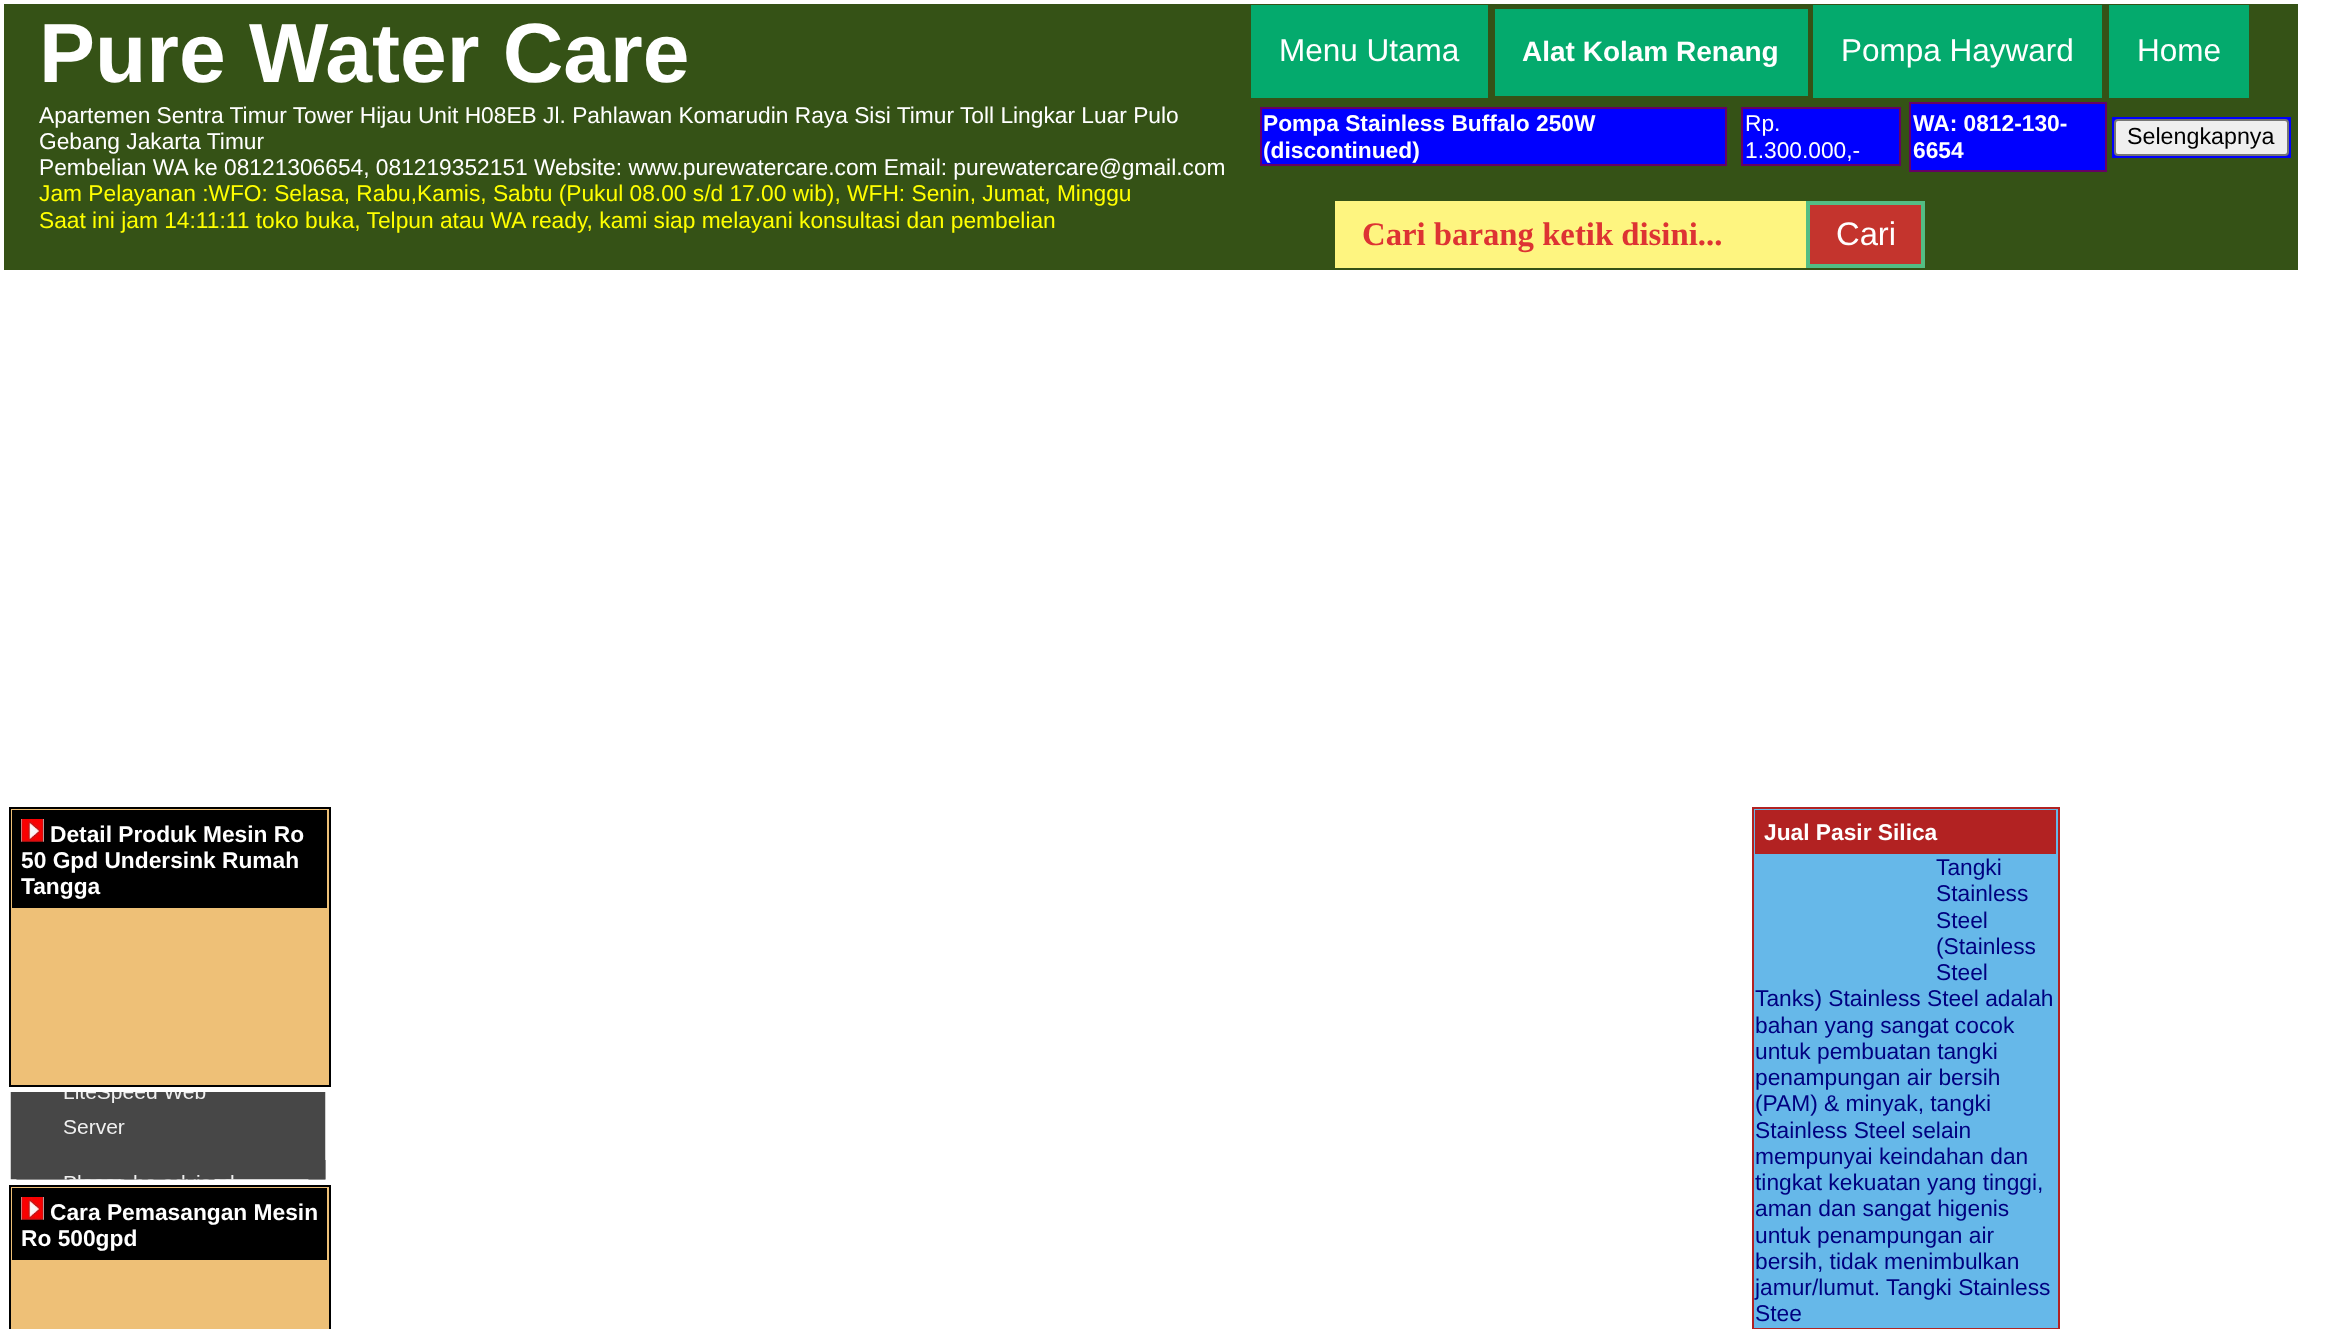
<?xml version="1.0" encoding="UTF-8"?>
<svg xmlns="http://www.w3.org/2000/svg" xmlns:xlink="http://www.w3.org/1999/xlink" width="2345" height="1329">
  <rect width="100%" height="100%" fill="#ffffff" />
  <rect x="4" y="4" width="2294" height="266" fill="#355216" />
  <rect x="1251" y="5" width="237" height="93" fill="#04aa6d" />
  <rect x="1495" y="9" width="313" height="87" fill="#04aa6d" />
  <rect x="1813" y="5" width="289" height="93" fill="#04aa6d" />
  <rect x="2109" y="5" width="140" height="93" fill="#04aa6d" />
  <rect x="1261" y="108" width="465" height="57" fill="#0000ff" stroke="#660066" stroke-width="2" />
  <rect x="1742" y="108" width="158" height="57" fill="#0000ff" stroke="#660066" stroke-width="2" />
  <rect x="1910" y="103" width="196" height="68" fill="#0000ff" stroke="#660066" stroke-width="2" />
  <rect x="2112" y="117" width="179" height="41" fill="#0000ff" />
  <rect x="2115" y="120" width="173" height="35" rx="3" fill="#efefef" stroke="#767676" stroke-width="2" />
  <rect x="1335" y="201" width="471" height="67" fill="#fef580" />
  <rect x="1808" y="203" width="115" height="63" fill="#c4342d" stroke="#53bd84" stroke-width="4" />
  <rect x="10" y="808" width="320" height="278" fill="#eec077" stroke="#000000" stroke-width="2" />
  <rect x="12" y="810" width="315" height="98" fill="#000000" />
  <image x="21" y="819" width="23" height="23" xlink:href="image1.png" />
  <image x="10" y="1092" width="316" height="88" xlink:href="image2.png" />
  <rect x="10" y="1186" width="320" height="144" fill="#eec077" stroke="#000000" stroke-width="2" />
  <rect x="12" y="1188" width="315" height="72" fill="#000000" />
  <image x="21" y="1197" width="23" height="23" xlink:href="image1.png" />
  <rect x="1753" y="808" width="306" height="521" fill="#66b8e9" stroke="#b22222" stroke-width="2" />
  <rect x="1755" y="810" width="301" height="44" fill="#b22222" />
  <text x="39" y="82" style="font-family: Liberation Sans; font-size: 84px; font-weight: bold; fill: #ffffff">Pure Water Care</text>
  <text x="39" y="123" style="font-family: Liberation Sans; font-size: 22.75px; fill: #ffffff">Apartemen Sentra Timur Tower Hijau Unit H08EB Jl. Pahlawan Komarudin Raya Sisi Timur Toll Lingkar Luar Pulo</text>
  <text x="39" y="149" style="font-family: Liberation Sans; font-size: 22.75px; fill: #ffffff">Gebang Jakarta Timur</text>
  <text x="39" y="175" style="font-family: Liberation Sans; font-size: 22.75px; fill: #ffffff">Pembelian WA ke 08121306654, 081219352151 Website: www.purewatercare.com Email: purewatercare@gmail.com</text>
  <text x="39" y="201" style="font-family: Liberation Sans; font-size: 22.75px; fill: #ffff00">Jam Pelayanan :WFO: Selasa, Rabu,Kamis, Sabtu (Pukul 08.00 s/d 17.00 wib), WFH: Senin, Jumat, Minggu</text>
  <text x="39" y="228" style="font-family: Liberation Sans; font-size: 22.75px; fill: #ffff00">Saat ini jam 14:11:11 toko buka, Telpun atau WA ready, kami siap melayani konsultasi dan pembelian</text>
  <text x="1279" y="61" style="font-family: Liberation Sans; font-size: 31.5px; fill: #ffffff">Menu Utama</text>
  <text x="1522" y="61" style="font-family: Liberation Sans; font-size: 28px; font-weight: bold; fill: #ffffff">Alat Kolam Renang</text>
  <text x="1841" y="61" style="font-family: Liberation Sans; font-size: 31.5px; fill: #ffffff">Pompa Hayward</text>
  <text x="2137" y="61" style="font-family: Liberation Sans; font-size: 31.5px; fill: #ffffff">Home</text>
  <text x="1263" y="131" style="font-family: Liberation Sans; font-size: 22.75px; font-weight: bold; fill: #ffffff">Pompa Stainless Buffalo 250W</text>
  <text x="1263" y="158" style="font-family: Liberation Sans; font-size: 22.75px; font-weight: bold; fill: #ffffff">(discontinued)</text>
  <text x="1745" y="131" style="font-family: Liberation Sans; font-size: 22.75px; fill: #ffffff">Rp.</text>
  <text x="1745" y="158" style="font-family: Liberation Sans; font-size: 22.75px; fill: #ffffff">1.300.000,-</text>
  <text x="1913" y="131" style="font-family: Liberation Sans; font-size: 22.75px; font-weight: bold; fill: #ffffff">WA: 0812-130-</text>
  <text x="1913" y="158" style="font-family: Liberation Sans; font-size: 22.75px; font-weight: bold; fill: #ffffff">6654</text>
  <text x="2127" y="144" style="font-family: Liberation Sans; font-size: 23.25px; fill: #000000">Selengkapnya</text>
  <text x="1362" y="245" style="font-family: Liberation Serif; font-size: 32.75px; font-weight: bold; fill: #dd3333">Cari barang ketik disini...</text>
  <text x="1836" y="245" style="font-family: Liberation Sans; font-size: 32.75px; fill: #ffffff">Cari</text>
  <text x="50" y="842" style="font-family: Liberation Sans; font-size: 22.75px; font-weight: bold; fill: #ffffff">Detail Produk Mesin Ro</text>
  <text x="21" y="868" style="font-family: Liberation Sans; font-size: 22.75px; font-weight: bold; fill: #ffffff">50 Gpd Undersink Rumah</text>
  <text x="21" y="894" style="font-family: Liberation Sans; font-size: 22.75px; font-weight: bold; fill: #ffffff">Tangga</text>
  <text x="50" y="1220" style="font-family: Liberation Sans; font-size: 22.75px; font-weight: bold; fill: #ffffff">Cara Pemasangan Mesin</text>
  <text x="21" y="1246" style="font-family: Liberation Sans; font-size: 22.75px; font-weight: bold; fill: #ffffff">Ro 500gpd</text>
  <text x="1764" y="840" style="font-family: Liberation Sans; font-size: 22.75px; font-weight: bold; fill: #ffffff">Jual Pasir Silica</text>
  <text x="1936" y="875" style="font-family: Liberation Sans; font-size: 22.75px; fill: #000080">Tangki</text>
  <text x="1936" y="901" style="font-family: Liberation Sans; font-size: 22.75px; fill: #000080">Stainless</text>
  <text x="1936" y="928" style="font-family: Liberation Sans; font-size: 22.75px; fill: #000080">Steel</text>
  <text x="1936" y="954" style="font-family: Liberation Sans; font-size: 22.75px; fill: #000080">(Stainless</text>
  <text x="1936" y="980" style="font-family: Liberation Sans; font-size: 22.75px; fill: #000080">Steel</text>
  <text x="1755" y="1006" style="font-family: Liberation Sans; font-size: 22.75px; fill: #000080">Tanks) Stainless Steel adalah</text>
  <text x="1755" y="1033" style="font-family: Liberation Sans; font-size: 22.75px; fill: #000080">bahan yang sangat cocok</text>
  <text x="1755" y="1059" style="font-family: Liberation Sans; font-size: 22.75px; fill: #000080">untuk pembuatan tangki</text>
  <text x="1755" y="1085" style="font-family: Liberation Sans; font-size: 22.75px; fill: #000080">penampungan air bersih</text>
  <text x="1755" y="1111" style="font-family: Liberation Sans; font-size: 22.75px; fill: #000080">(PAM) &amp; minyak, tangki</text>
  <text x="1755" y="1138" style="font-family: Liberation Sans; font-size: 22.75px; fill: #000080">Stainless Steel selain</text>
  <text x="1755" y="1164" style="font-family: Liberation Sans; font-size: 22.75px; fill: #000080">mempunyai keindahan dan</text>
  <text x="1755" y="1190" style="font-family: Liberation Sans; font-size: 22.75px; fill: #000080">tingkat kekuatan yang tinggi,</text>
  <text x="1755" y="1216" style="font-family: Liberation Sans; font-size: 22.75px; fill: #000080">aman dan sangat higenis</text>
  <text x="1755" y="1243" style="font-family: Liberation Sans; font-size: 22.75px; fill: #000080">untuk penampungan air</text>
  <text x="1755" y="1269" style="font-family: Liberation Sans; font-size: 22.75px; fill: #000080">bersih, tidak menimbulkan</text>
  <text x="1755" y="1295" style="font-family: Liberation Sans; font-size: 22.75px; fill: #000080">jamur/lumut. Tangki Stainless</text>
  <text x="1755" y="1321" style="font-family: Liberation Sans; font-size: 22.75px; fill: #000080">Stee</text>
</svg>
